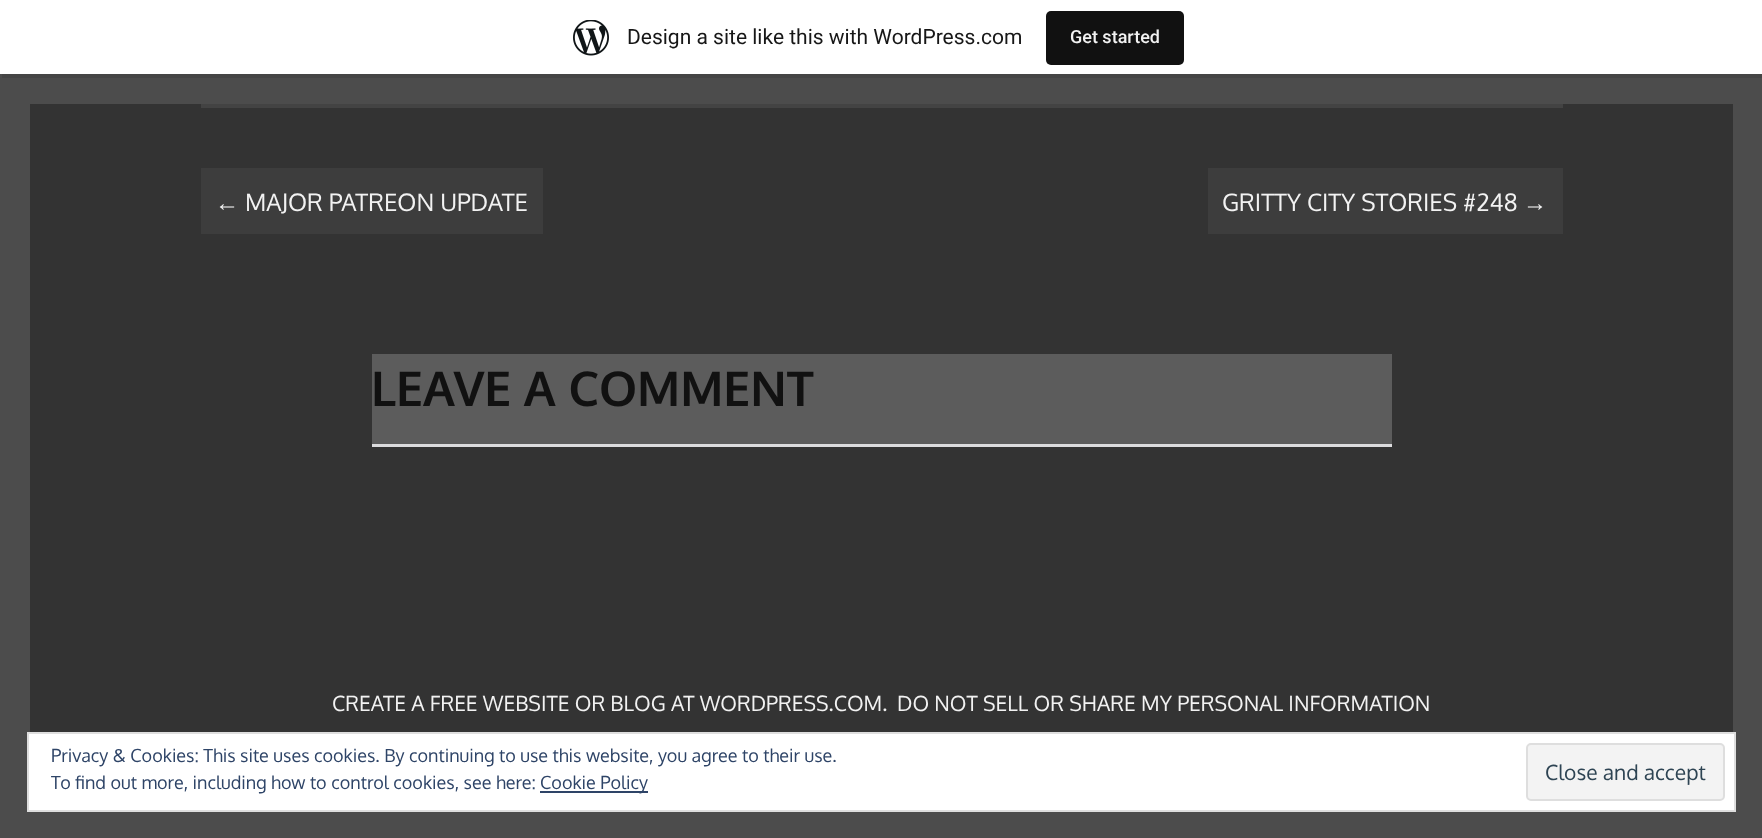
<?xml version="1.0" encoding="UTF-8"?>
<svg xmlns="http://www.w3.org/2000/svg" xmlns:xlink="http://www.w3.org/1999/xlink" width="1762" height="838">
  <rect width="100%" height="100%" fill="#333333" />
  <rect y="74" width="1762" height="30" fill="#4c4c4c" />
  <path d="M 2 74 v 4 h 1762 v -73 h -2 v 69 z" fill="#454545" />
  <rect width="1762" height="74" fill="#ffffff" />
  <image x="573" y="20" width="36" height="36" xlink:href="image1.png" />
  <rect x="1046" y="11" width="138" height="54" rx="5" fill="#111111" />
  <rect x="1733" y="104" width="29" height="705" fill="#4c4c4c" />
  <rect y="104" width="30" height="705" fill="#4c4c4c" />
  <rect x="201" y="104" width="1362" height="4" fill="#434343" />
  <rect x="201" y="168" width="342" height="66" fill="#3d3d3d" />
  <rect x="1208" y="168" width="355" height="66" fill="#3d3d3d" />
  <rect x="372" y="354" width="1020" height="90" fill="#5c5c5c" />
  <rect x="372" y="444" width="1020" height="3" fill="#dcdcde" />
  <rect y="809" width="1762" height="29" fill="#4c4c4c" />
  <rect x="28" y="733" width="1707" height="78" fill="#ffffff" stroke="#dedede" stroke-width="2" />
  <rect x="540" y="791" width="108" height="2" fill="#2e4467" />
  <rect x="1527" y="744" width="197" height="56" rx="4" fill="#f3f3f3" stroke="#dedede" stroke-width="2" />
  <text x="627" y="44" style="font-family: Roboto; font-size: 21px; fill: #171717">Design a site like this with WordPress.com</text>
  <text x="1070" y="43" style="font-family: Roboto; font-size: 18px; font-weight: 500; fill: #f2f2f2">Get started</text>
  <text x="215" y="211" style="font-family: Liberation Sans; font-size: 24px; fill: #f2f2f2">←</text>
  <text x="245" y="211" style="font-family: Oxygen; font-size: 24px; fill: #f2f2f2">MAJOR PATREON UPDATE</text>
  <text x="1222" y="211" style="font-family: Oxygen; font-size: 24px; fill: #f2f2f2">GRITTY CITY STORIES #248</text>
  <text x="1523" y="211" style="font-family: Liberation Sans; font-size: 24px; fill: #f2f2f2">→</text>
  <text x="371" y="406" style="font-family: Oxygen; font-size: 48px; font-weight: bold; fill: #111111">LEAVE A COMMENT</text>
  <text x="332" y="711" style="font-family: Oxygen; font-size: 21px; fill: #f2f2f2">CREATE A FREE WEBSITE OR BLOG AT WORDPRESS.COM.</text>
  <text x="897" y="711" style="font-family: Oxygen; font-size: 21px; fill: #f2f2f2">DO NOT SELL OR SHARE MY PERSONAL INFORMATION</text>
  <text x="51" y="762" style="font-family: Oxygen; font-size: 18px; fill: #2e4467">Privacy &amp; Cookies: This site uses cookies. By continuing to use this website, you agree to their use.</text>
  <text x="51" y="789" style="font-family: Oxygen; font-size: 18px; fill: #2e4467">To find out more, including how to control cookies, see here:</text>
  <text x="540" y="789" style="font-family: Oxygen; font-size: 18px; fill: #2e4467">Cookie Policy</text>
  <text x="1545" y="780" style="font-family: Oxygen; font-size: 21px; fill: #2e4453">Close and accept</text>
</svg>
